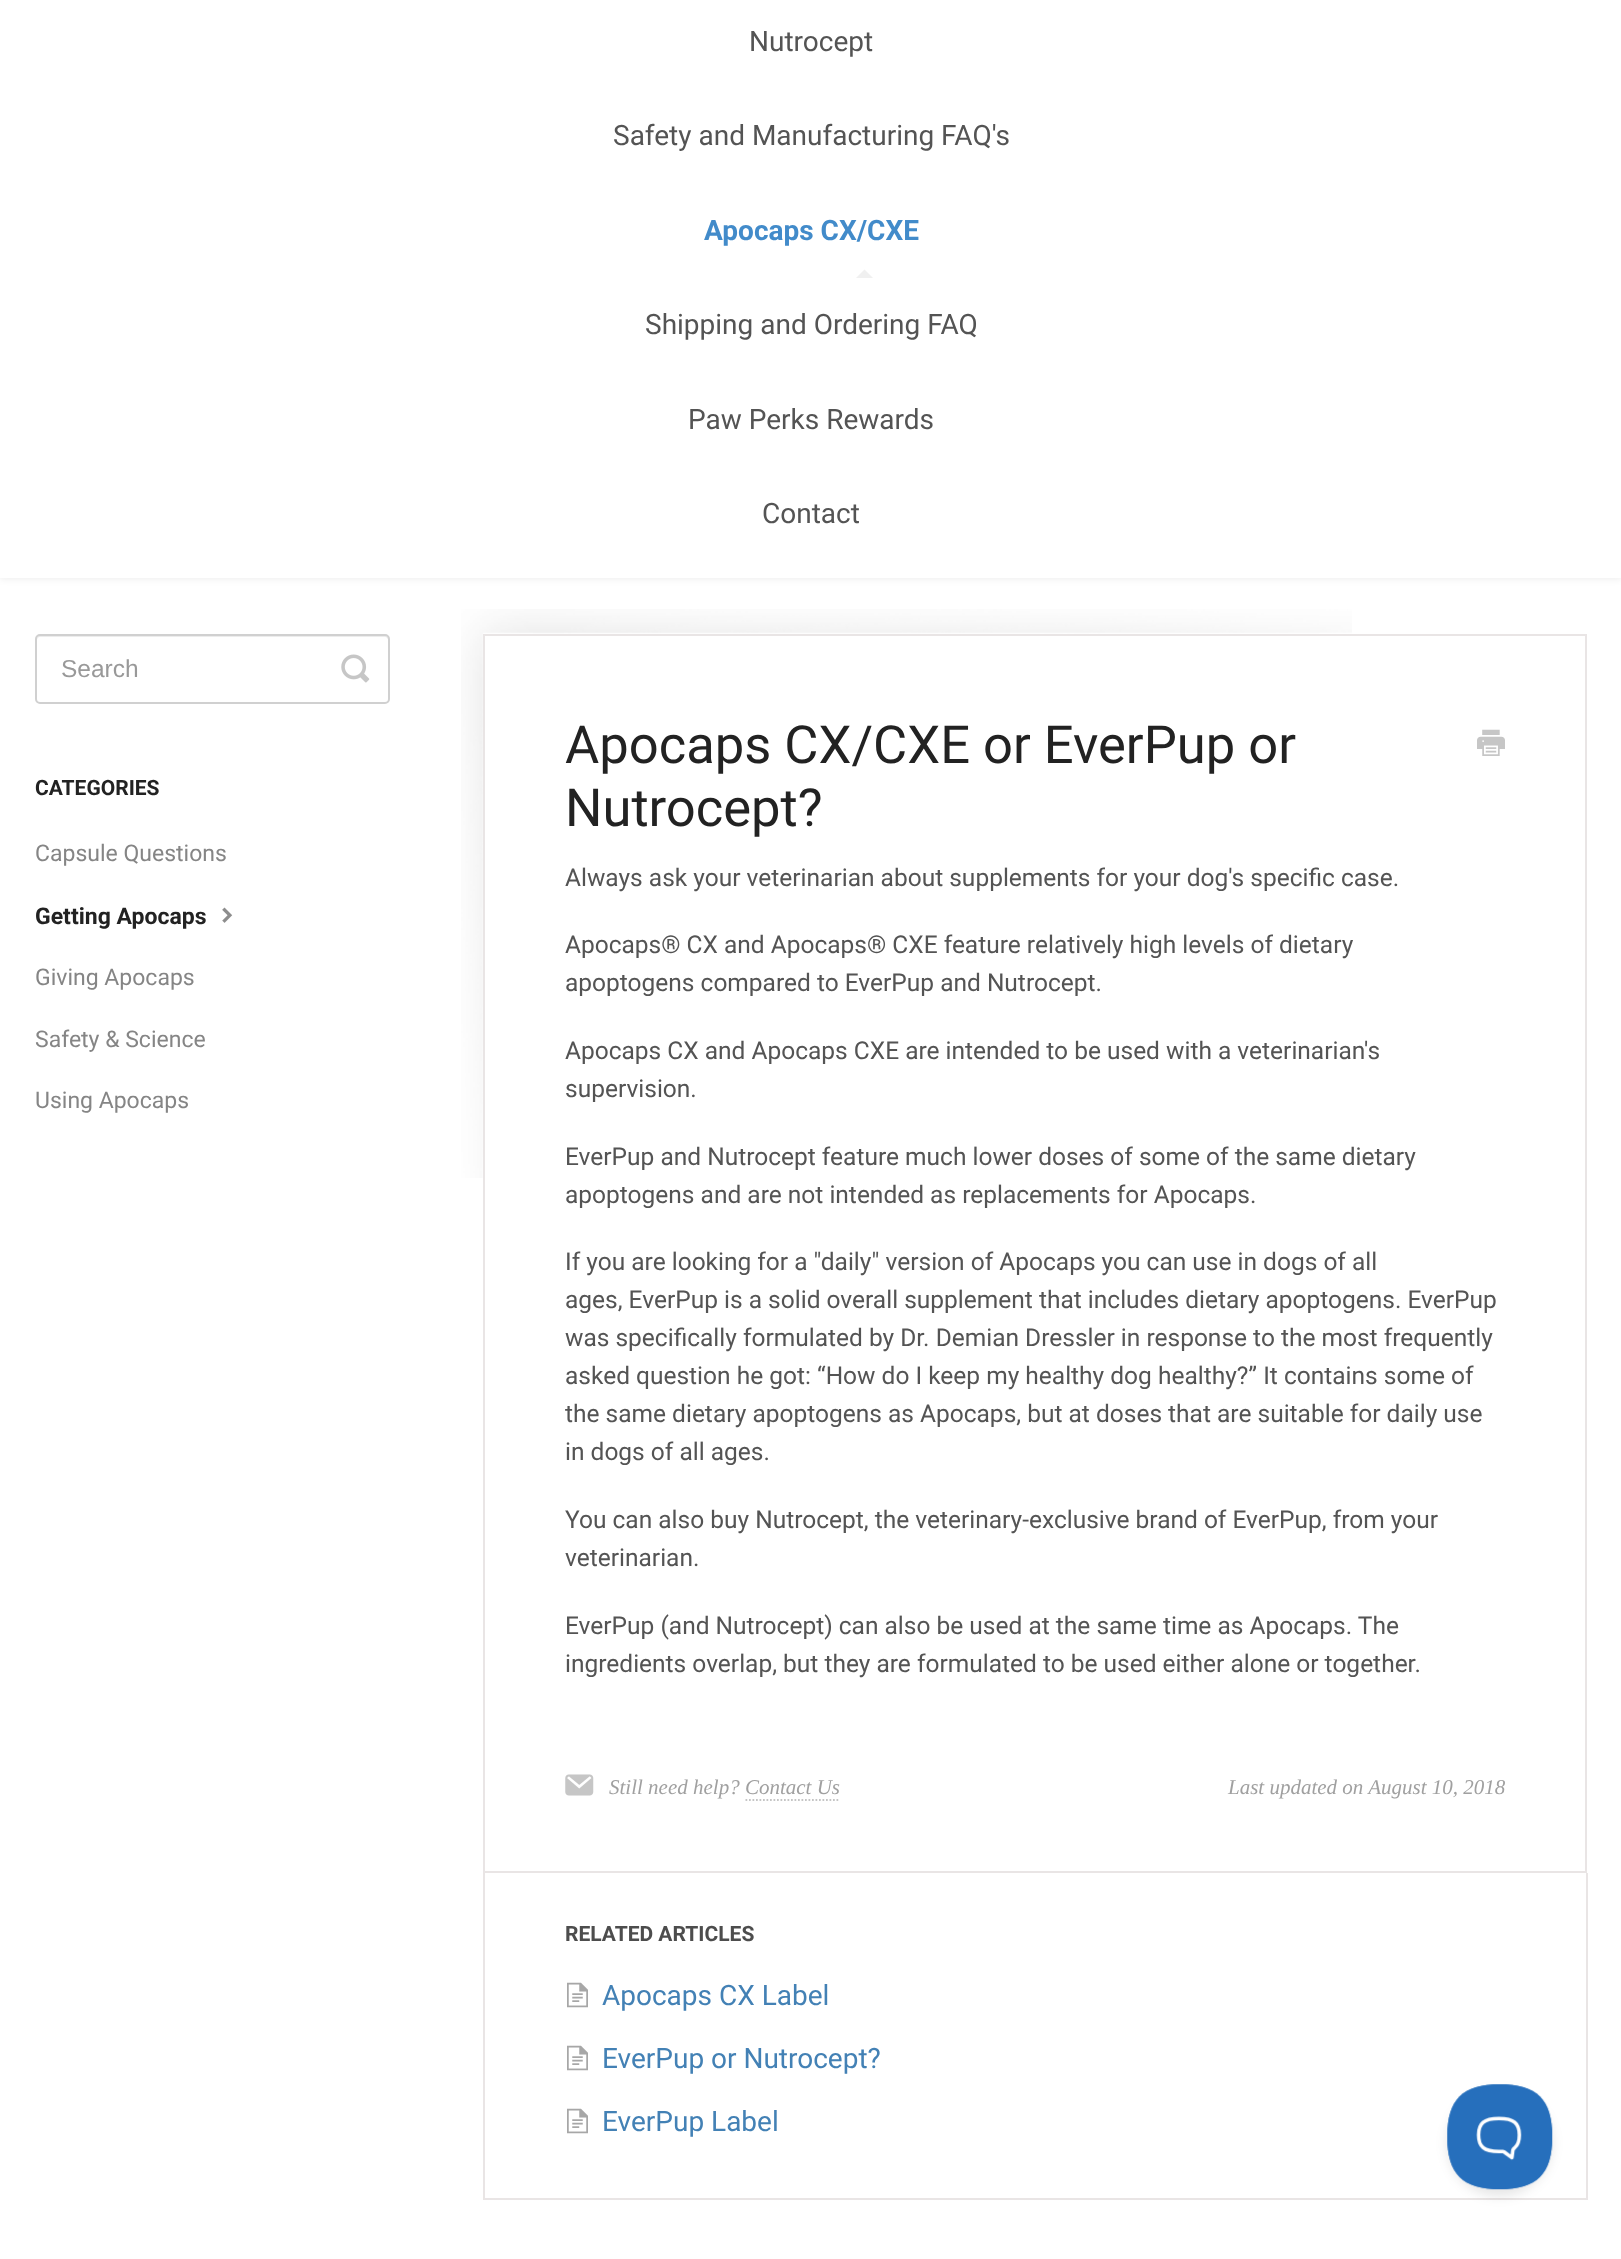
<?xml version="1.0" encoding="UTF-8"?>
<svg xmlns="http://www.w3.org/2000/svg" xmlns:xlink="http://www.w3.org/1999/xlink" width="1621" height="2259">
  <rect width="100%" height="100%" fill="#ffffff" />
  <rect y="-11" width="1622" height="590" fill="#000000" fill-opacity="0.07" filter="blur(3.5px)" />
  <rect width="1621" height="578" fill="#ffffff" />
  <path d="M 873 278 h -17 l 8.5 -8.5 z" fill="#f0f0f0" />
  <path d="M 40 637 h 345 c 2 0 3 2 3 3 v 61 c 1 -1 1 -2 1 -3 v -59 c 0 -2 -2 -4 -4 -4 h -344 c -2 0 -4 2 -4 4 v 1 c 0 -1 1 -3 3 -3 z" fill="#ececec" />
  <rect x="36" y="635" width="353" height="68" rx="4" fill="none" stroke="#d0d0d0" stroke-width="2" />
  <image x="341" y="654" width="29" height="29" xlink:href="image1.png" />
  <image x="222" y="907" width="11" height="16" xlink:href="image2.png" />
  <image x="461" y="609" width="891" height="569" xlink:href="image3.png" />
  <rect x="484" y="635" width="1102" height="1237" fill="none" stroke="#e9e5e5" stroke-width="2" />
  <image x="1477" y="729" width="28" height="27" xlink:href="image4.png" />
  <image x="565" y="1774" width="29" height="22" xlink:href="image5.png" />
  <path d="M 745.5 1800 h 94.5" fill="none" stroke="#c5c5c5" stroke-width="1.8" stroke-dasharray="1.75 1.75" />
  <rect x="1586" y="1873" width="2" height="327" fill="#e9e5e5" />
  <rect x="483" y="2198" width="1104" height="2" fill="#e9e5e5" />
  <rect x="483" y="1873" width="2" height="327" fill="#e9e5e5" />
  <image x="567" y="1982" width="21" height="26" xlink:href="image6.png" />
  <image x="567" y="2045" width="21" height="26" xlink:href="image6.png" />
  <image x="567" y="2108" width="21" height="26" xlink:href="image6.png" />
  <rect x="1447" y="2091" width="105" height="105" rx="52.5" fill="#000000" fill-opacity="0.1" filter="blur(6px)" />
  <image x="1447" y="2084" width="106" height="106" xlink:href="image7.png" />
  <text x="749" y="51" style="font-family: Roboto; font-size: 28px; fill: #545454">Nutrocept</text>
  <text x="613" y="145" style="font-family: Roboto; font-size: 28px; fill: #545454">Safety and Manufacturing FAQ's</text>
  <text x="704" y="240" style="font-family: Roboto; font-size: 28px; font-weight: bold; fill: #428bca">Apocaps CX/CXE</text>
  <text x="645" y="334" style="font-family: Roboto; font-size: 28px; fill: #545454">Shipping and Ordering FAQ</text>
  <text x="688" y="429" style="font-family: Roboto; font-size: 28px; fill: #545454">Paw Perks Rewards</text>
  <text x="762" y="523" style="font-family: Roboto; font-size: 28px; fill: #545454">Contact</text>
  <text x="61" y="677" style="font-family: Liberation Sans; font-size: 24.5px; fill: #999999">Search</text>
  <text x="35" y="795" style="font-family: Roboto; font-size: 21px; font-weight: bold; fill: #222222">CATEGORIES</text>
  <text x="35" y="861" style="font-family: Roboto; font-size: 23px; fill: #858585">Capsule Questions</text>
  <text x="35" y="924" style="font-family: Roboto; font-size: 23px; font-weight: bold; fill: #222222">Getting Apocaps</text>
  <text x="35" y="985" style="font-family: Roboto; font-size: 23px; fill: #858585">Giving Apocaps</text>
  <text x="35" y="1047" style="font-family: Roboto; font-size: 23px; fill: #858585">Safety &amp; Science</text>
  <text x="35" y="1108" style="font-family: Roboto; font-size: 23px; fill: #858585">Using Apocaps</text>
  <text x="565" y="763" style="font-family: Roboto; font-size: 52.5px; fill: #222222">Apocaps CX/CXE or EverPup or</text>
  <text x="565" y="826" style="font-family: Roboto; font-size: 52.5px; fill: #222222">Nutrocept?</text>
  <text x="565" y="886" style="font-family: Roboto; font-size: 24.5px; fill: #545454">Always ask your veterinarian about supplements for your dog's specific case.</text>
  <text x="565" y="953" style="font-family: Roboto; font-size: 24.5px; fill: #545454">Apocaps® CX and Apocaps® CXE feature relatively high levels of dietary</text>
  <text x="565" y="991" style="font-family: Roboto; font-size: 24.5px; fill: #545454">apoptogens compared to EverPup and Nutrocept.</text>
  <text x="565" y="1059" style="font-family: Roboto; font-size: 24.5px; fill: #545454">Apocaps CX and Apocaps CXE are intended to be used with a veterinarian's</text>
  <text x="565" y="1097" style="font-family: Roboto; font-size: 24.5px; fill: #545454">supervision.</text>
  <text x="565" y="1165" style="font-family: Roboto; font-size: 24.5px; fill: #545454">EverPup and Nutrocept feature much lower doses of some of the same dietary</text>
  <text x="565" y="1203" style="font-family: Roboto; font-size: 24.5px; fill: #545454">apoptogens and are not intended as replacements for Apocaps.</text>
  <text x="565" y="1270" style="font-family: Roboto; font-size: 24.5px; fill: #545454">If you are looking for a "daily" version of Apocaps you can use in dogs of all</text>
  <text x="565" y="1308" style="font-family: Roboto; font-size: 24.5px; fill: #545454">ages, EverPup is a solid overall supplement that includes dietary apoptogens. EverPup</text>
  <text x="565" y="1346" style="font-family: Roboto; font-size: 24.5px; fill: #545454">was specifically formulated by Dr. Demian Dressler in response to the most frequently</text>
  <text x="565" y="1384" style="font-family: Roboto; font-size: 24.5px; fill: #545454">asked question he got: “How do I keep my healthy dog healthy?” It contains some of</text>
  <text x="565" y="1422" style="font-family: Roboto; font-size: 24.5px; fill: #545454">the same dietary apoptogens as Apocaps, but at doses that are suitable for daily use</text>
  <text x="565" y="1460" style="font-family: Roboto; font-size: 24.5px; fill: #545454">in dogs of all ages.</text>
  <text x="565" y="1528" style="font-family: Roboto; font-size: 24.5px; fill: #545454">You can also buy Nutrocept, the veterinary-exclusive brand of EverPup, from your</text>
  <text x="565" y="1566" style="font-family: Roboto; font-size: 24.5px; fill: #545454">veterinarian.</text>
  <text x="565" y="1634" style="font-family: Roboto; font-size: 24.5px; fill: #545454">EverPup (and Nutrocept) can also be used at the same time as Apocaps. The</text>
  <text x="565" y="1672" style="font-family: Roboto; font-size: 24.5px; fill: #545454">ingredients overlap, but they are formulated to be used either alone or together.</text>
  <text x="609" y="1794" style="font-family: Liberation Serif; font-size: 21px; font-style: italic; fill: #a0a0a0">Still need help? Contact Us</text>
  <text x="1228" y="1794" style="font-family: Liberation Serif; font-size: 21px; font-style: italic; fill: #a0a0a0">Last updated on August 10, 2018</text>
  <text x="565" y="1941" style="font-family: Roboto; font-size: 21px; font-weight: bold; fill: #4d4d4d">RELATED ARTICLES</text>
  <text x="602" y="2005" style="font-family: Roboto; font-size: 28px; fill: #4381b5">Apocaps CX Label</text>
  <text x="602" y="2068" style="font-family: Roboto; font-size: 28px; fill: #4381b5">EverPup or Nutrocept?</text>
  <text x="602" y="2131" style="font-family: Roboto; font-size: 28px; fill: #4381b5">EverPup Label</text>
</svg>
